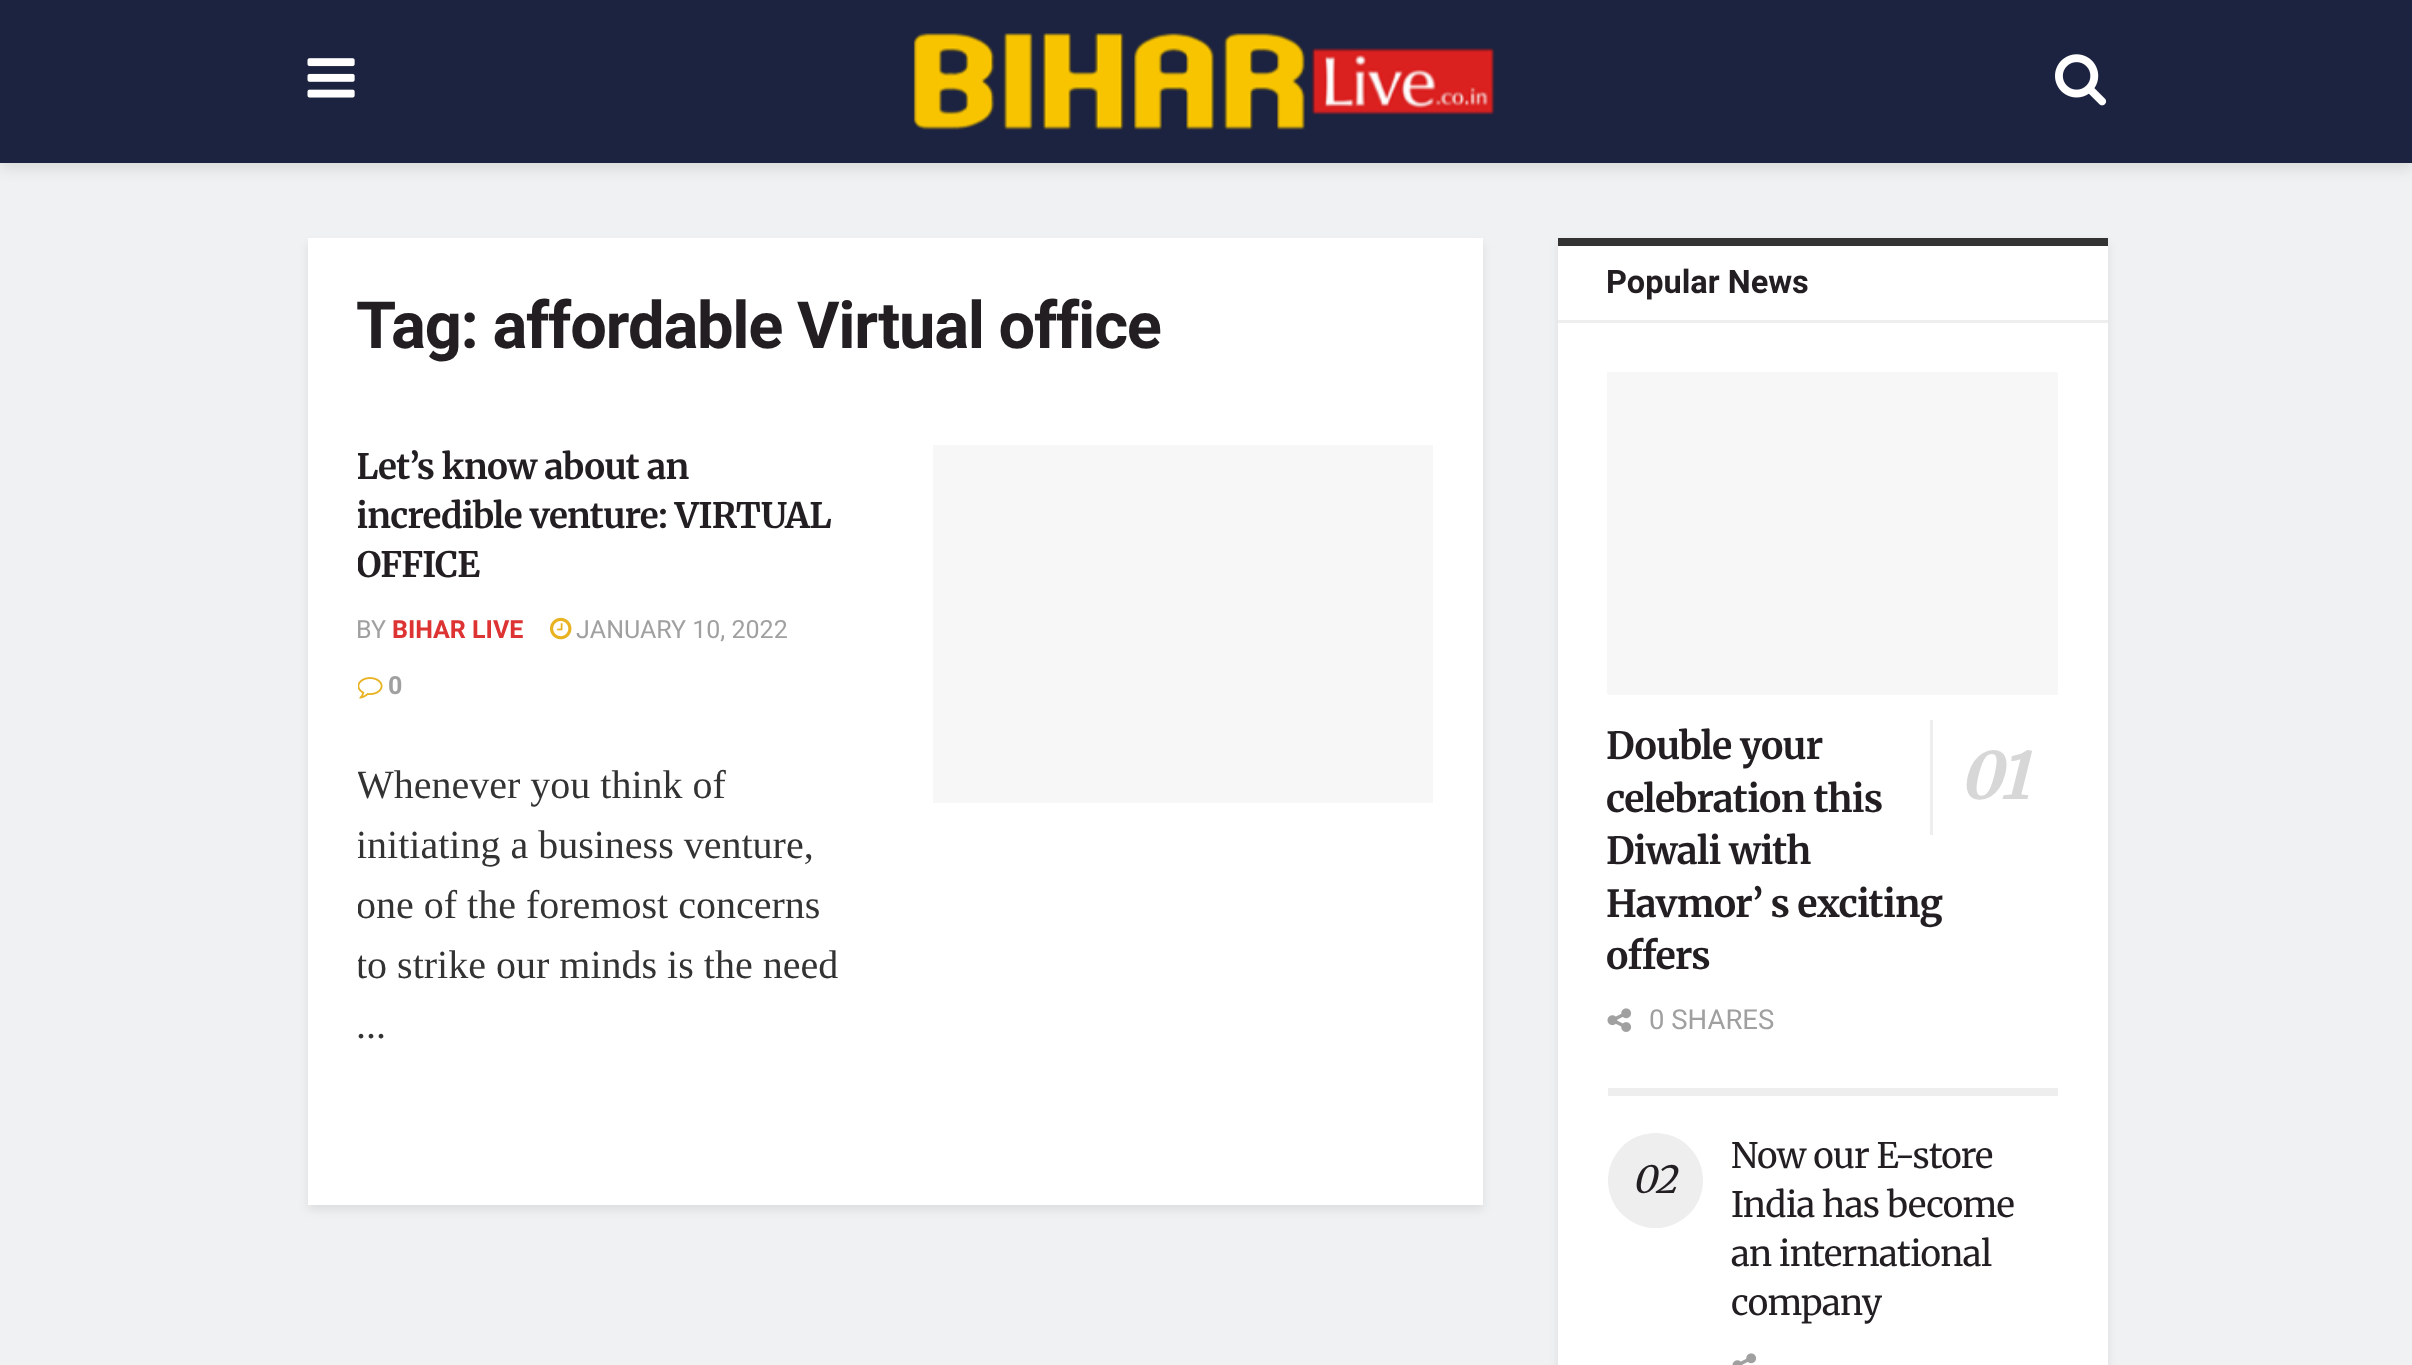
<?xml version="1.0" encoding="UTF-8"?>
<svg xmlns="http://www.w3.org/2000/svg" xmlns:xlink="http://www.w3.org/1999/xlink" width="2412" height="1365">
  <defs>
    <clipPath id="clip1"><rect x="358" y="445" width="500" height="610" /></clipPath>
  </defs>
  <rect width="100%" height="100%" fill="#f0f1f2" />
  <rect y="5" width="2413" height="163" fill="#000000" fill-opacity="0.1" filter="blur(7.5px)" />
  <rect width="2412" height="163" fill="#1c2341" />
  <image x="307" y="58" width="48" height="40" xlink:href="image1.png" />
  <image x="913" y="33" width="582" height="97" xlink:href="image2.png" />
  <image x="2055" y="54" width="52" height="52" xlink:href="image3.png" />
  <rect x="308" y="243" width="1175" height="967" fill="#000000" fill-opacity="0.08" filter="blur(5px)" />
  <rect x="308" y="238" width="1175" height="967" fill="#ffffff" />
  <image x="550" y="617" width="22" height="23" xlink:href="image4.png" />
  <image x="358" y="677" width="25" height="22" xlink:href="image5.png" />
  <rect x="933" y="445" width="500" height="358" fill="#f7f7f7" />
  <rect x="1558" y="243" width="550" height="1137" fill="#000000" fill-opacity="0.08" filter="blur(5px)" />
  <rect x="1558" y="246" width="550" height="1119" fill="#ffffff" />
  <rect x="1558" y="238" width="550" height="8" fill="#333333" />
  <rect x="1558" y="320" width="550" height="3" fill="#eeeeee" />
  <rect x="1608" y="1088" width="450" height="8" fill="#eeeeee" />
  <rect x="1608" y="373" width="450" height="322" fill="#f7f7f7" />
  <rect x="1607" y="372" width="450" height="322" fill="#f7f7f7" />
  <rect x="1930" y="720" width="3" height="115" fill="#eeeeee" />
  <image x="1607" y="1008" width="25" height="24" xlink:href="image6.png" />
  <circle cx="1655.5" cy="1180.5" r="47.5" fill="#eeeeee" />
  <image x="1732" y="1353" width="25" height="12" xlink:href="image7.png" />
  <text x="356" y="348" style="font-family: Heebo; font-size: 65px; font-weight: bold; letter-spacing: -1.3px; fill: #221e22">Tag: affordable Virtual office</text>
  <g clip-path="url(#clip1)">
    <text x="356" y="479" style="font-family: Merriweather; font-size: 35px; font-weight: bold; letter-spacing: -0.7px; fill: #221e22">Let’s know about an</text>
    <text x="356" y="528" style="font-family: Merriweather; font-size: 35px; font-weight: bold; letter-spacing: -0.7px; fill: #221e22">incredible venture: VIRTUAL</text>
    <text x="356" y="577" style="font-family: Merriweather; font-size: 35px; font-weight: bold; letter-spacing: -0.7px; fill: #221e22">OFFICE</text>
  </g>
  <text x="356" y="638" style="font-family: Heebo; font-size: 25px; fill: #a0a0a0">BY</text>
  <text x="392" y="638" style="font-family: Heebo; font-size: 25px; font-weight: bold; fill: #dd3333">BIHAR LIVE</text>
  <text x="576" y="638" style="font-family: Heebo; font-size: 25px; fill: #a0a0a0">JANUARY 10, 2022</text>
  <text x="388" y="694" style="font-family: Heebo; font-size: 25px; font-weight: bold; fill: #a0a0a0">0</text>
  <g clip-path="url(#clip1)">
    <text x="356" y="798" style="font-family: Liberation Serif; font-size: 40px; fill: #333333">Whenever you think of</text>
    <text x="356" y="858" style="font-family: Liberation Serif; font-size: 40px; fill: #333333">initiating a business venture,</text>
    <text x="356" y="918" style="font-family: Liberation Serif; font-size: 40px; fill: #333333">one of the foremost concerns</text>
    <text x="356" y="978" style="font-family: Liberation Serif; font-size: 40px; fill: #333333">to strike our minds is the need</text>
  </g>
  <text x="356" y="1038" style="font-family: Liberation Serif; font-size: 40px; fill: #333333">...</text>
  <text x="1606" y="293" style="font-family: Heebo; font-size: 32.5px; font-weight: bold; fill: #221e22">Popular News</text>
  <text x="1606" y="759" style="font-family: Merriweather; font-size: 37.5px; font-weight: bold; letter-spacing: -0.75px; fill: #221e22">Double your</text>
  <text x="1959" y="799" style="font-family: Merriweather; font-size: 65px; font-weight: bold; font-style: italic; letter-spacing: -0.75px; fill: #d7d7d7">01</text>
  <text x="1606" y="812" style="font-family: Merriweather; font-size: 37.5px; font-weight: bold; letter-spacing: -0.75px; fill: #221e22">celebration this</text>
  <text x="1606" y="864" style="font-family: Merriweather; font-size: 37.5px; font-weight: bold; letter-spacing: -0.75px; fill: #221e22">Diwali with</text>
  <text x="1606" y="917" style="font-family: Merriweather; font-size: 37.5px; font-weight: bold; letter-spacing: -0.75px; fill: #221e22">Havmor’ s exciting</text>
  <text x="1606" y="969" style="font-family: Merriweather; font-size: 37.5px; font-weight: bold; letter-spacing: -0.75px; fill: #221e22">offers</text>
  <text x="1649" y="1029" style="font-family: Heebo; font-size: 27.5px; fill: #a0a0a0">0 SHARES</text>
  <text x="1731" y="1168" style="font-family: Merriweather; font-size: 35px; letter-spacing: -0.7px; fill: #221e22">Now our E-store</text>
  <text x="1632" y="1193" style="font-family: Merriweather; font-size: 37.5px; font-style: italic; letter-spacing: -0.7px; fill: #221e22">02</text>
  <text x="1731" y="1217" style="font-family: Merriweather; font-size: 35px; letter-spacing: -0.7px; fill: #221e22">India has become</text>
  <text x="1731" y="1266" style="font-family: Merriweather; font-size: 35px; letter-spacing: -0.7px; fill: #221e22">an international</text>
  <text x="1731" y="1315" style="font-family: Merriweather; font-size: 35px; letter-spacing: -0.7px; fill: #221e22">company</text>
</svg>
